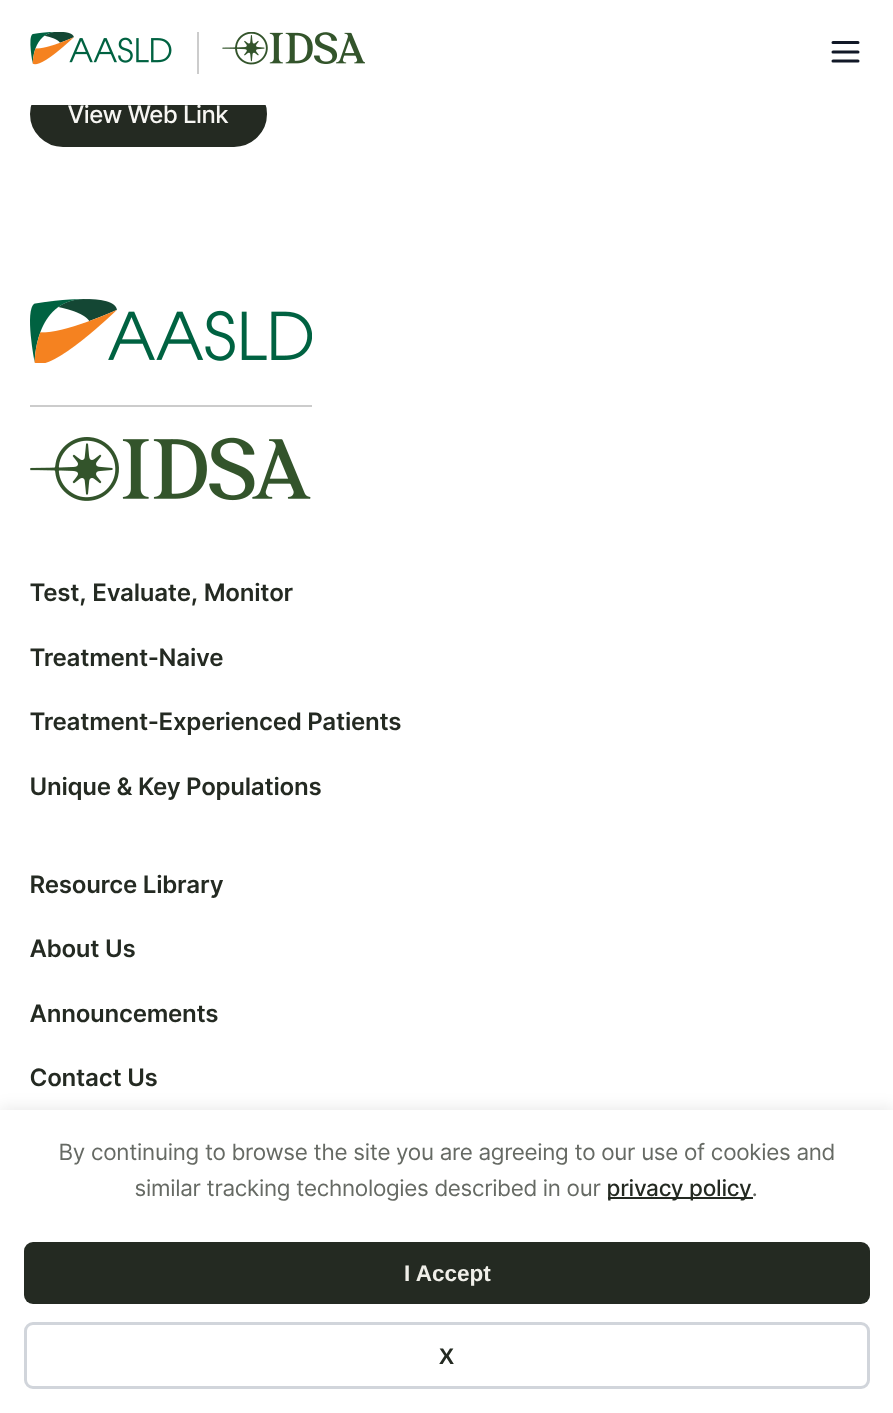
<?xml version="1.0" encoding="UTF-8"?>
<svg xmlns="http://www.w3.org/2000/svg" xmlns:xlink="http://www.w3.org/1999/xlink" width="893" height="1413">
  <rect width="100%" height="100%" fill="#ffffff" />
  <rect x="197" y="32" width="2" height="42" fill="#cccccc" />
  <image x="30" y="32" width="142" height="33" xlink:href="image1.png" />
  <image x="222" y="32" width="143" height="33" xlink:href="image2.png" />
  <path d="M 833 42.5 h 25 m -25 9.5 h 25 m -25 9 h 25" fill="none" stroke="#111827" stroke-width="3" stroke-linecap="round" stroke-linejoin="round" />
  <rect x="31" y="82" width="235" height="64" rx="32" fill="#242a22" stroke="#242a22" stroke-width="2" />
  <image x="30" y="299" width="282" height="64" xlink:href="image3.png" />
  <rect x="30" y="405" width="282" height="2" fill="#cccccc" />
  <image x="30" y="437" width="281" height="64" xlink:href="image4.png" />
  <rect y="1107" width="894" height="303" fill="#000000" fill-opacity="0.08" filter="blur(7.5px)" />
  <rect y="1110" width="893" height="303" fill="#ffffff" />
  <rect x="608" y="1197" width="145" height="2" fill="#242a22" />
  <rect x="24" y="1242" width="846" height="62" rx="9" fill="#242a22" />
  <rect x="25.5" y="1323.5" width="843" height="64" rx="7.5" fill="none" stroke="#d1d5db" stroke-width="3" />
  <text x="68" y="123" style="font-family: Inter Tight; font-size: 24px; font-weight: 500; letter-spacing: 0.5px; fill: #f7f6f3">View Web Link</text>
  <rect x="31" y="81" width="235" height="24" fill="#ffffff" />
  <text x="30" y="601" style="font-family: Inter Tight; font-size: 24px; font-weight: 600; letter-spacing: 0.72px; fill: #242a22">Test, Evaluate, Monitor</text>
  <text x="30" y="666" style="font-family: Inter Tight; font-size: 24px; font-weight: 600; letter-spacing: 0.72px; fill: #242a22">Treatment-Naive</text>
  <text x="30" y="730" style="font-family: Inter Tight; font-size: 24px; font-weight: 600; letter-spacing: 0.72px; fill: #242a22">Treatment-Experienced Patients</text>
  <text x="30" y="795" style="font-family: Inter Tight; font-size: 24px; font-weight: 600; letter-spacing: 0.72px; fill: #242a22">Unique &amp; Key Populations</text>
  <text x="30" y="893" style="font-family: Inter Tight; font-size: 24px; font-weight: 600; letter-spacing: 0.72px; fill: #242a22">Resource Library</text>
  <text x="30" y="957" style="font-family: Inter Tight; font-size: 24px; font-weight: 600; letter-spacing: 0.72px; fill: #242a22">About Us</text>
  <text x="30" y="1022" style="font-family: Inter Tight; font-size: 24px; font-weight: 600; letter-spacing: 0.72px; fill: #242a22">Announcements</text>
  <text x="30" y="1086" style="font-family: Inter Tight; font-size: 24px; font-weight: 600; letter-spacing: 0.72px; fill: #242a22">Contact Us</text>
  <text x="59" y="1160" style="font-family: Inter Tight; font-size: 22.5px; letter-spacing: 0.72px; fill: #666a64">By continuing to browse the site you are agreeing to our use of cookies and</text>
  <text x="135" y="1196" style="font-family: Inter Tight; font-size: 22.5px; letter-spacing: 0.72px; fill: #666a64">similar tracking technologies described in our</text>
  <text x="607" y="1196" style="font-family: Inter Tight; font-size: 22.5px; font-weight: 500; letter-spacing: 0.72px; fill: #242a22">privacy policy</text>
  <text x="752" y="1196" style="font-family: Inter Tight; font-size: 22.5px; letter-spacing: 0.72px; fill: #666a64">.</text>
  <text x="404" y="1281" style="font-family: Liberation Sans; font-size: 22.5px; font-weight: bold; fill: #f0efe9">I Accept</text>
  <text x="439" y="1364" style="font-family: Liberation Sans; font-size: 22.5px; font-weight: bold; fill: #242a22">X</text>
</svg>
